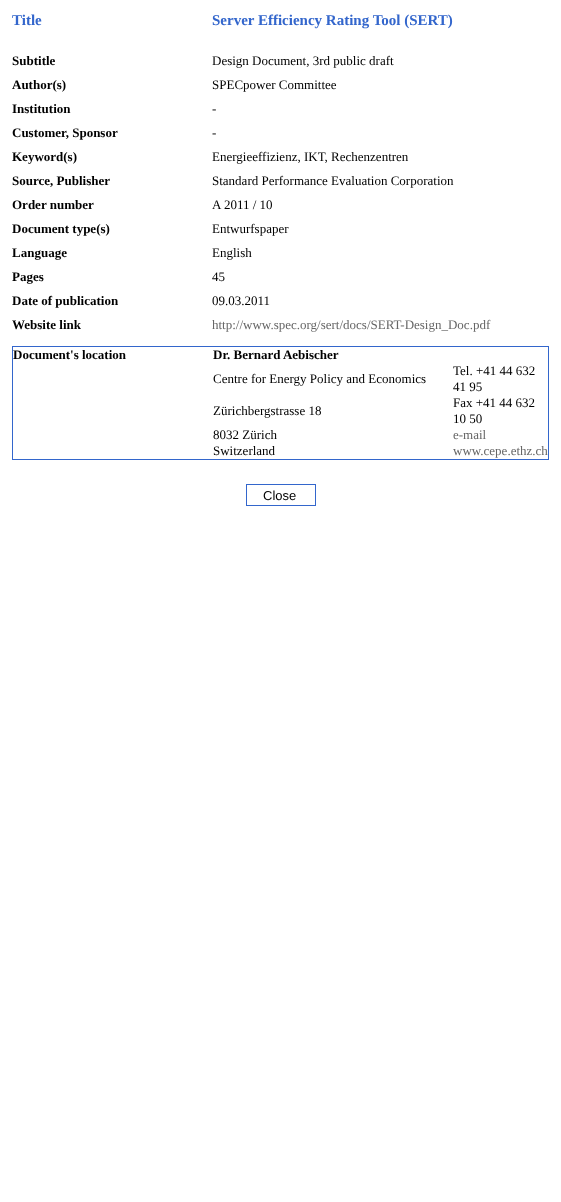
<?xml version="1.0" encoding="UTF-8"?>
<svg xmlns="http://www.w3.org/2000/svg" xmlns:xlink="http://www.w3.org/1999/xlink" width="561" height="1202">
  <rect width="100%" height="100%" fill="#ffffff" />
  <rect x="12" y="346" width="537" height="114" fill="#3366cc" />
  <rect x="13" y="347" width="535" height="112" fill="#ffffff" />
  <rect x="246.5" y="484.5" width="69" height="21" fill="none" stroke="#3366cc" />
  <text x="12" y="25" style="font-family: Liberation Serif; font-size: 15px; font-weight: bold; fill: #3366cc">Title</text>
  <text x="212" y="25" style="font-family: Liberation Serif; font-size: 15px; font-weight: bold; fill: #3366cc">Server Efficiency Rating Tool (SERT)</text>
  <text x="12" y="65" style="font-family: Liberation Serif; font-size: 13px; font-weight: bold; fill: #000000">Subtitle</text>
  <text x="212" y="65" style="font-family: Liberation Serif; font-size: 13px; fill: #000000">Design Document, 3rd public draft</text>
  <text x="12" y="89" style="font-family: Liberation Serif; font-size: 13px; font-weight: bold; fill: #000000">Author(s)</text>
  <text x="212" y="89" style="font-family: Liberation Serif; font-size: 13px; fill: #000000">SPECpower Committee</text>
  <text x="12" y="113" style="font-family: Liberation Serif; font-size: 13px; font-weight: bold; fill: #000000">Institution</text>
  <text x="212" y="113" style="font-family: Liberation Serif; font-size: 13px; fill: #000000">-</text>
  <text x="12" y="137" style="font-family: Liberation Serif; font-size: 13px; font-weight: bold; fill: #000000">Customer, Sponsor</text>
  <text x="212" y="137" style="font-family: Liberation Serif; font-size: 13px; fill: #000000">-</text>
  <text x="12" y="161" style="font-family: Liberation Serif; font-size: 13px; font-weight: bold; fill: #000000">Keyword(s)</text>
  <text x="212" y="161" style="font-family: Liberation Serif; font-size: 13px; fill: #000000">Energieeffizienz, IKT, Rechenzentren</text>
  <text x="12" y="185" style="font-family: Liberation Serif; font-size: 13px; font-weight: bold; fill: #000000">Source, Publisher</text>
  <text x="212" y="185" style="font-family: Liberation Serif; font-size: 13px; fill: #000000">Standard Performance Evaluation Corporation</text>
  <text x="12" y="209" style="font-family: Liberation Serif; font-size: 13px; font-weight: bold; fill: #000000">Order number</text>
  <text x="212" y="209" style="font-family: Liberation Serif; font-size: 13px; fill: #000000">A 2011 / 10</text>
  <text x="12" y="233" style="font-family: Liberation Serif; font-size: 13px; font-weight: bold; fill: #000000">Document type(s)</text>
  <text x="212" y="233" style="font-family: Liberation Serif; font-size: 13px; fill: #000000">Entwurfspaper</text>
  <text x="12" y="257" style="font-family: Liberation Serif; font-size: 13px; font-weight: bold; fill: #000000">Language</text>
  <text x="212" y="257" style="font-family: Liberation Serif; font-size: 13px; fill: #000000">English</text>
  <text x="12" y="281" style="font-family: Liberation Serif; font-size: 13px; font-weight: bold; fill: #000000">Pages</text>
  <text x="212" y="281" style="font-family: Liberation Serif; font-size: 13px; fill: #000000">45</text>
  <text x="12" y="305" style="font-family: Liberation Serif; font-size: 13px; font-weight: bold; fill: #000000">Date of publication</text>
  <text x="212" y="305" style="font-family: Liberation Serif; font-size: 13px; fill: #000000">09.03.2011</text>
  <text x="12" y="329" style="font-family: Liberation Serif; font-size: 13px; font-weight: bold; fill: #000000">Website link</text>
  <text x="212" y="329" style="font-family: Liberation Serif; font-size: 13px; fill: #666666">http://www.spec.org/sert/docs/SERT-Design_Doc.pdf</text>
  <text x="13" y="359" style="font-family: Liberation Serif; font-size: 13px; font-weight: bold; fill: #000000">Document's location</text>
  <text x="213" y="359" style="font-family: Liberation Serif; font-size: 13px; font-weight: bold; fill: #000000">Dr. Bernard Aebischer</text>
  <text x="213" y="383" style="font-family: Liberation Serif; font-size: 13px; fill: #000000">Centre for Energy Policy and Economics</text>
  <text x="453" y="375" style="font-family: Liberation Serif; font-size: 13px; fill: #000000">Tel. +41 44 632</text>
  <text x="453" y="391" style="font-family: Liberation Serif; font-size: 13px; fill: #000000">41 95</text>
  <text x="213" y="415" style="font-family: Liberation Serif; font-size: 13px; fill: #000000">Zürichbergstrasse 18</text>
  <text x="453" y="407" style="font-family: Liberation Serif; font-size: 13px; fill: #000000">Fax +41 44 632</text>
  <text x="453" y="423" style="font-family: Liberation Serif; font-size: 13px; fill: #000000">10 50</text>
  <text x="213" y="439" style="font-family: Liberation Serif; font-size: 13px; fill: #000000">8032 Zürich</text>
  <text x="453" y="439" style="font-family: Liberation Serif; font-size: 13px; fill: #666666">e-mail</text>
  <text x="213" y="455" style="font-family: Liberation Serif; font-size: 13px; fill: #000000">Switzerland</text>
  <text x="453" y="455" style="font-family: Liberation Serif; font-size: 13px; fill: #666666">www.cepe.ethz.ch</text>
  <text x="263" y="500" style="font-family: Liberation Sans; font-size: 13px; fill: #000000">Close</text>
</svg>
